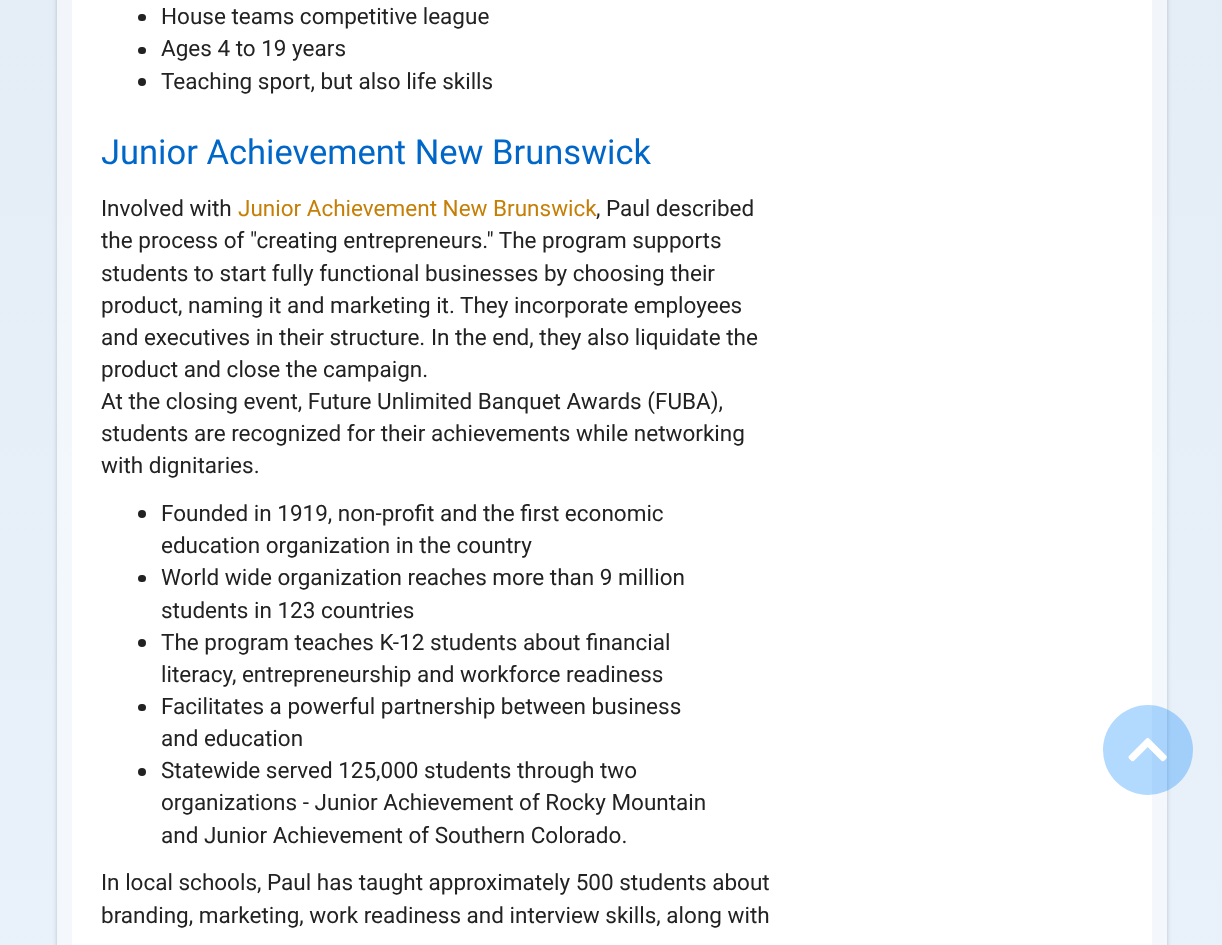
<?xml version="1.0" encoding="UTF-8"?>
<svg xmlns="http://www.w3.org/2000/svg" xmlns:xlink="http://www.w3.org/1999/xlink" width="1222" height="945">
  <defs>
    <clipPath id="clip1"><path d="M 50 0 h 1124 v 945 h -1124 z m 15 -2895 h 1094 c 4.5 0 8 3.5 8 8 v 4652 c 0 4.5 -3.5 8 -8 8 h -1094 c -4.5 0 -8 -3.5 -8 -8 v -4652 c 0 -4.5 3.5 -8 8 -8 z" clip-rule="evenodd" /></clipPath>
  </defs>
  <rect width="100%" height="100%" fill="#ffffff" />
  <image x="0" y="0" width="1222" height="945" xlink:href="image1.png" />
  <g clip-path="url(#clip1)">
    <rect x="57" y="-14" width="1110" height="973" rx="8" fill="#000000" fill-opacity="0.2" filter="blur(2px)" />
  </g>
  <rect x="72" width="1080" height="945" fill="#ffffff" />
  <rect x="138" y="14" width="8" height="7" rx="3.5" fill="#222222" />
  <rect x="138" y="47" width="8" height="7" rx="3.5" fill="#222222" />
  <circle cx="142" cy="82" r="4" fill="#222222" />
  <circle cx="142" cy="514" r="4" fill="#222222" />
  <rect x="138" y="575" width="8" height="7" rx="3.5" fill="#222222" />
  <circle cx="142" cy="643" r="4" fill="#222222" />
  <rect x="138" y="704" width="8" height="7" rx="3.5" fill="#222222" />
  <circle cx="142" cy="772" r="4" fill="#222222" />
  <circle cx="1148" cy="750" r="45" fill="#0081fb" fill-opacity="0.3" />
  <image x="1128" y="738" width="39" height="24" xlink:href="image2.png" />
  <text x="161" y="24" style="font-family: Roboto; font-size: 22.5px; fill: #222222">House teams competitive league</text>
  <text x="161" y="56" style="font-family: Roboto; font-size: 22.5px; fill: #222222">Ages 4 to 19 years</text>
  <text x="161" y="89" style="font-family: Roboto; font-size: 22.5px; fill: #222222">Teaching sport, but also life skills</text>
  <text x="101" y="164" style="font-family: Roboto; font-size: 34.5px; fill: #0067c8">Junior Achievement New Brunswick</text>
  <text x="101" y="216" style="font-family: Roboto; font-size: 22.5px; fill: #222222">Involved with</text>
  <text x="238" y="216" style="font-family: Roboto; font-size: 22.5px; fill: #c57f07">Junior Achievement New Brunswick</text>
  <text x="596" y="216" style="font-family: Roboto; font-size: 22.5px; fill: #222222">, Paul described</text>
  <text x="101" y="248" style="font-family: Roboto; font-size: 22.5px; fill: #222222">the process of "creating entrepreneurs." The program supports</text>
  <text x="101" y="281" style="font-family: Roboto; font-size: 22.5px; fill: #222222">students to start fully functional businesses by choosing their</text>
  <text x="101" y="313" style="font-family: Roboto; font-size: 22.5px; fill: #222222">product, naming it and marketing it. They incorporate employees</text>
  <text x="101" y="345" style="font-family: Roboto; font-size: 22.5px; fill: #222222">and executives in their structure. In the end, they also liquidate the</text>
  <text x="101" y="377" style="font-family: Roboto; font-size: 22.5px; fill: #222222">product and close the campaign.</text>
  <text x="101" y="409" style="font-family: Roboto; font-size: 22.5px; fill: #222222">At the closing event, Future Unlimited Banquet Awards (FUBA),</text>
  <text x="101" y="441" style="font-family: Roboto; font-size: 22.5px; fill: #222222">students are recognized for their achievements while networking</text>
  <text x="101" y="473" style="font-family: Roboto; font-size: 22.5px; fill: #222222">with dignitaries.</text>
  <text x="161" y="521" style="font-family: Roboto; font-size: 22.5px; fill: #222222">Founded in 1919, non-profit and the first economic</text>
  <text x="161" y="553" style="font-family: Roboto; font-size: 22.5px; fill: #222222">education organization in the country</text>
  <text x="161" y="585" style="font-family: Roboto; font-size: 22.5px; fill: #222222">World wide organization reaches more than 9 million</text>
  <text x="161" y="618" style="font-family: Roboto; font-size: 22.5px; fill: #222222">students in 123 countries</text>
  <text x="161" y="650" style="font-family: Roboto; font-size: 22.5px; fill: #222222">The program teaches K-12 students about financial</text>
  <text x="161" y="682" style="font-family: Roboto; font-size: 22.5px; fill: #222222">literacy, entrepreneurship and workforce readiness</text>
  <text x="161" y="714" style="font-family: Roboto; font-size: 22.5px; fill: #222222">Facilitates a powerful partnership between business</text>
  <text x="161" y="746" style="font-family: Roboto; font-size: 22.5px; fill: #222222">and education</text>
  <text x="161" y="778" style="font-family: Roboto; font-size: 22.5px; fill: #222222">Statewide served 125,000 students through two</text>
  <text x="161" y="810" style="font-family: Roboto; font-size: 22.5px; fill: #222222">organizations - Junior Achievement of Rocky Mountain</text>
  <text x="161" y="843" style="font-family: Roboto; font-size: 22.5px; fill: #222222">and Junior Achievement of Southern Colorado.</text>
  <text x="101" y="890" style="font-family: Roboto; font-size: 22.5px; fill: #222222">In local schools, Paul has taught approximately 500 students about</text>
  <text x="101" y="923" style="font-family: Roboto; font-size: 22.5px; fill: #222222">branding, marketing, work readiness and interview skills, along with</text>
</svg>
